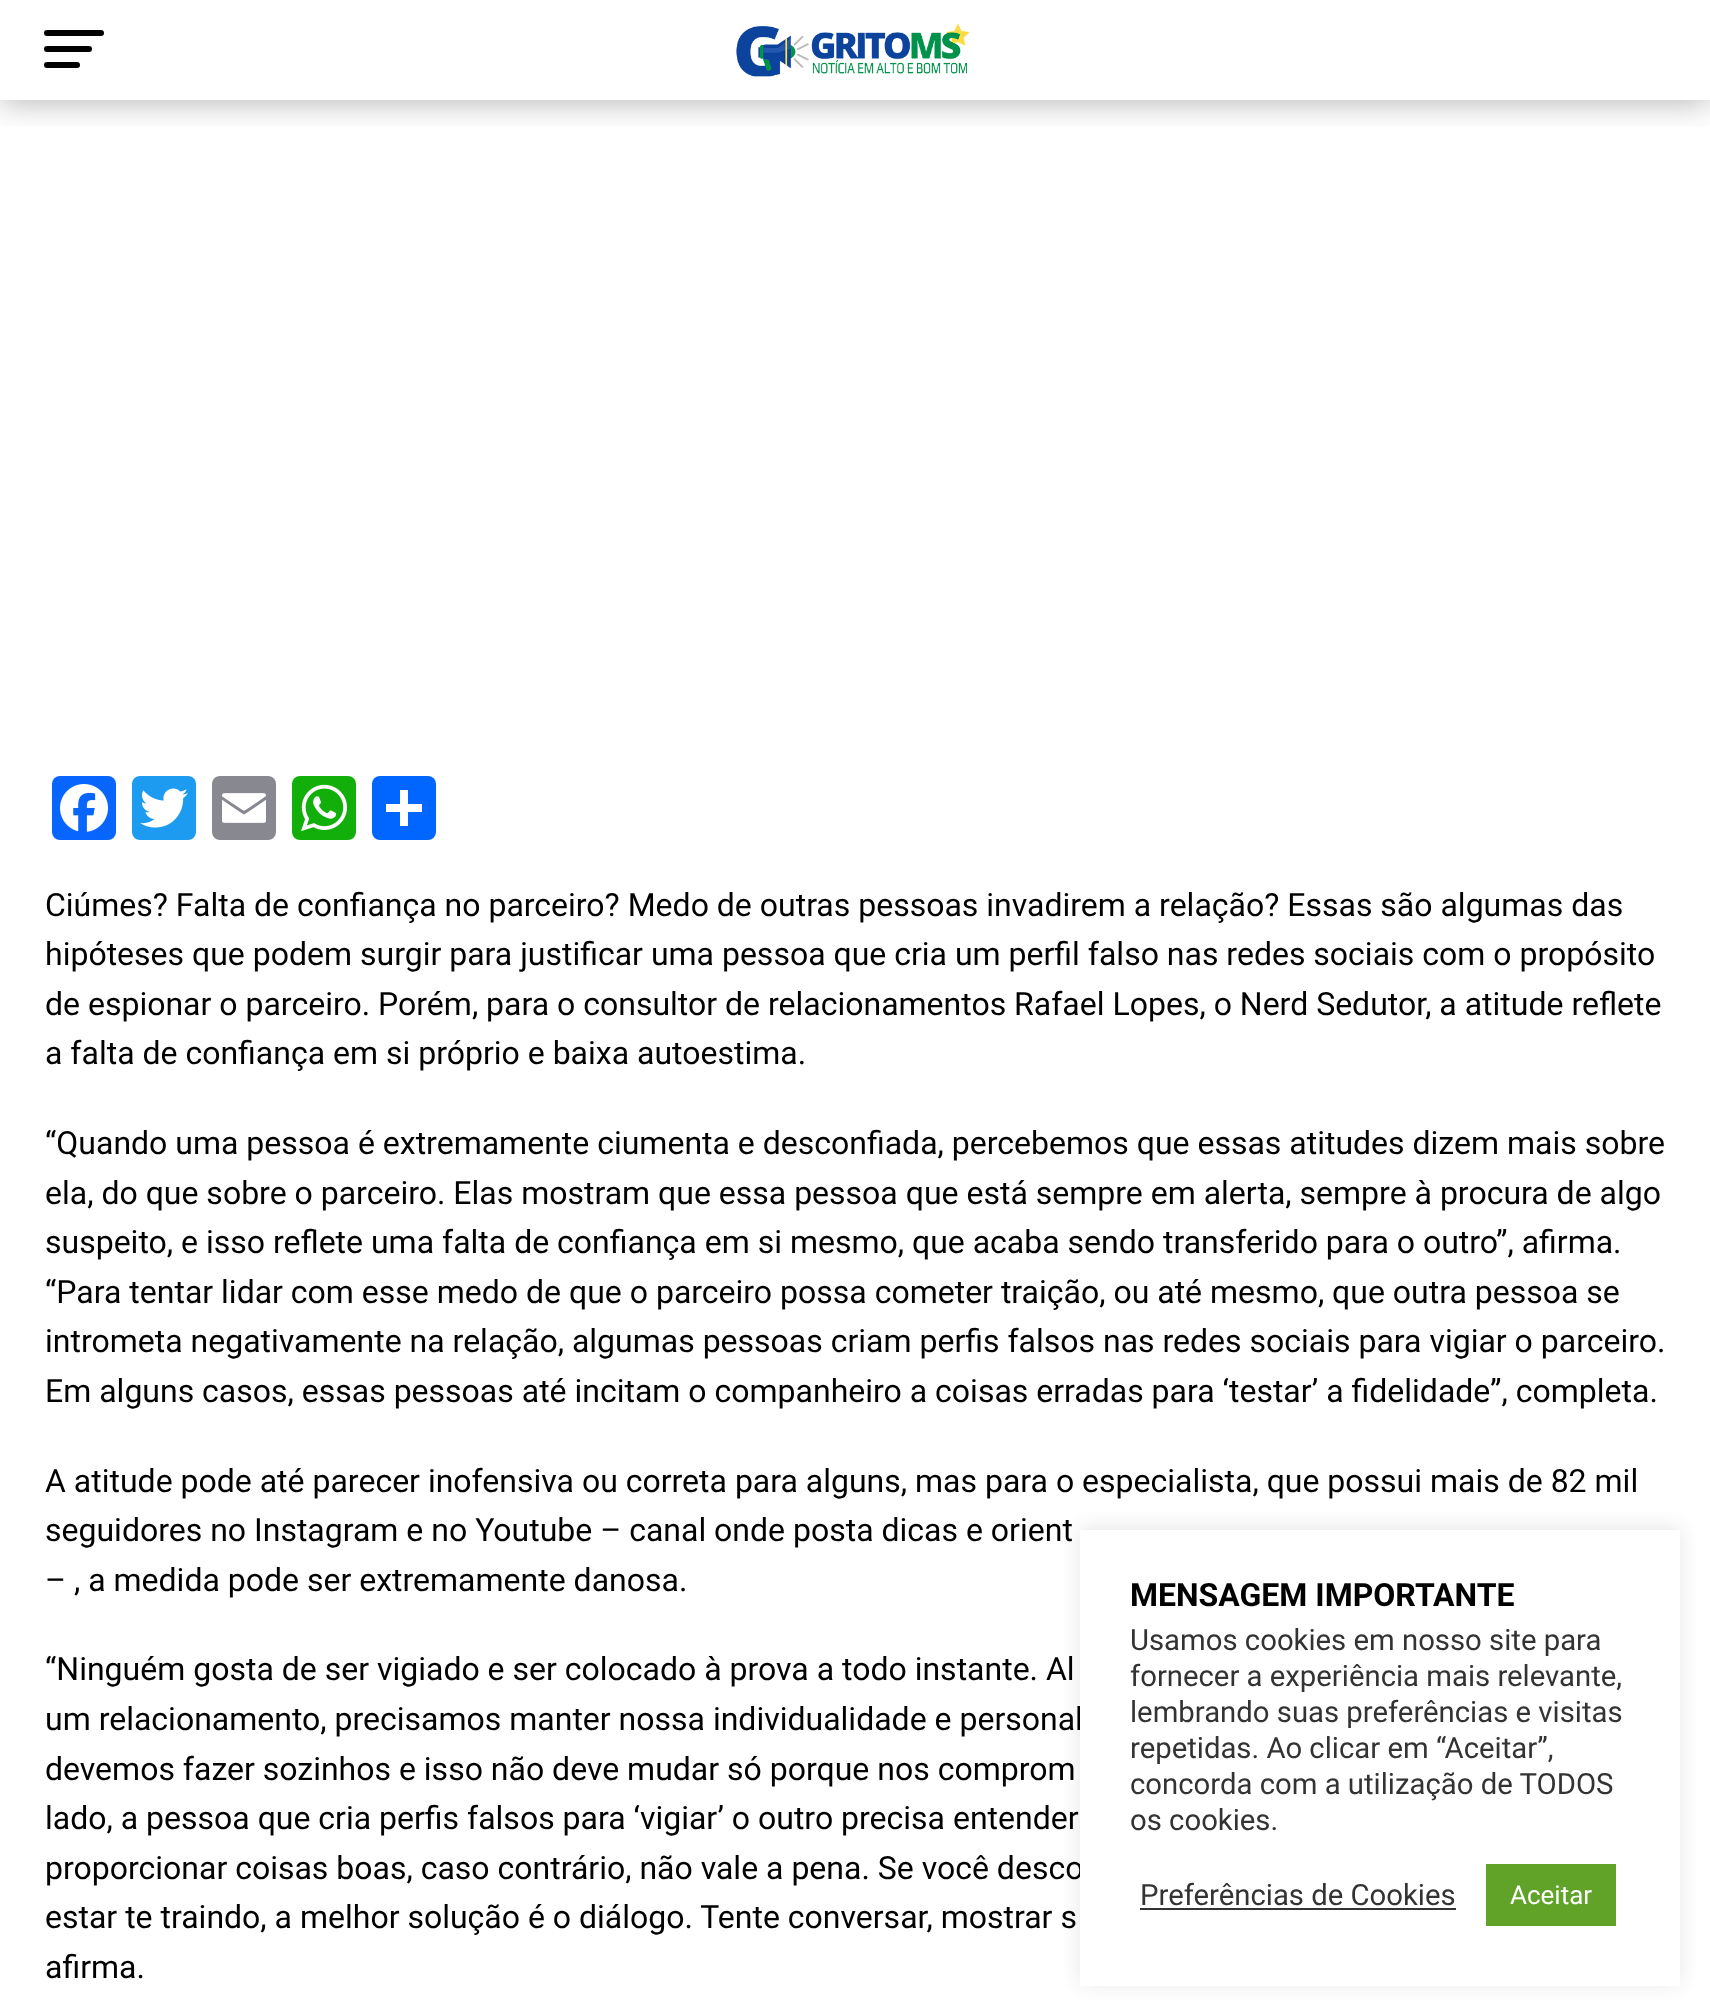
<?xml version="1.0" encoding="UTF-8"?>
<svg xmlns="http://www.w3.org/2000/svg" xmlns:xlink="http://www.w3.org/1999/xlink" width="1710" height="2015">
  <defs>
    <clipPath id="clip1"><rect x="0" y="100" width="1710" height="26" /></clipPath>
  </defs>
  <rect width="100%" height="100%" fill="#ffffff" />
  <g clip-path="url(#clip1)">
    <rect y="2" width="1710" height="100" fill="#000000" fill-opacity="0.3" filter="blur(16px)" />
  </g>
  <rect x="44" y="30" width="60" height="6" rx="3" fill="#000000" />
  <rect x="44" y="46" width="48" height="6" rx="3" fill="#000000" />
  <rect x="44" y="62" width="36" height="6" rx="3" fill="#000000" />
  <image x="736" y="23" width="234" height="54" xlink:href="image1.png" />
  <rect x="52" y="776" width="64" height="64" rx="8" fill="#0866ff" />
  <image x="60" y="784" width="48" height="48" xlink:href="image2.png" />
  <rect x="132" y="776" width="64" height="64" rx="8" fill="#1d9bf0" />
  <image x="140" y="788" width="48" height="40" xlink:href="image3.png" />
  <rect x="212" y="776" width="64" height="64" rx="8" fill="#888990" />
  <image x="222" y="793" width="44" height="30" xlink:href="image4.png" />
  <rect x="292" y="776" width="64" height="64" rx="8" fill="#12af0a" />
  <image x="301" y="784" width="46" height="48" xlink:href="image5.png" />
  <rect x="372" y="776" width="64" height="64" rx="8" fill="#0166ff" />
  <rect x="400" y="790" width="8" height="36" fill="#ffffff" />
  <rect x="386" y="804" width="36" height="8" fill="#ffffff" />
  <rect x="1080" y="1528" width="600" height="456" fill="#acabab" fill-opacity="0.3" filter="blur(10px)" />
  <text x="45" y="916" style="font-family: Roboto; font-size: 32px; fill: #000000">Ciúmes? Falta de confiança no parceiro? Medo de outras pessoas invadirem a relação? Essas são algumas das</text>
  <text x="45" y="965" style="font-family: Roboto; font-size: 32px; fill: #000000">hipóteses que podem surgir para justificar uma pessoa que cria um perfil falso nas redes sociais com o propósito</text>
  <text x="45" y="1015" style="font-family: Roboto; font-size: 32px; fill: #000000">de espionar o parceiro. Porém, para o consultor de relacionamentos Rafael Lopes, o Nerd Sedutor, a atitude reflete</text>
  <text x="45" y="1064" style="font-family: Roboto; font-size: 32px; fill: #000000">a falta de confiança em si próprio e baixa autoestima.</text>
  <text x="45" y="1154" style="font-family: Roboto; font-size: 32px; fill: #000000">“Quando uma pessoa é extremamente ciumenta e desconfiada, percebemos que essas atitudes dizem mais sobre</text>
  <text x="45" y="1204" style="font-family: Roboto; font-size: 32px; fill: #000000">ela, do que sobre o parceiro. Elas mostram que essa pessoa que está sempre em alerta, sempre à procura de algo</text>
  <text x="45" y="1253" style="font-family: Roboto; font-size: 32px; fill: #000000">suspeito, e isso reflete uma falta de confiança em si mesmo, que acaba sendo transferido para o outro”, afirma.</text>
  <text x="45" y="1303" style="font-family: Roboto; font-size: 32px; fill: #000000">“Para tentar lidar com esse medo de que o parceiro possa cometer traição, ou até mesmo, que outra pessoa se</text>
  <text x="45" y="1352" style="font-family: Roboto; font-size: 32px; fill: #000000">intrometa negativamente na relação, algumas pessoas criam perfis falsos nas redes sociais para vigiar o parceiro.</text>
  <text x="45" y="1402" style="font-family: Roboto; font-size: 32px; fill: #000000">Em alguns casos, essas pessoas até incitam o companheiro a coisas erradas para ‘testar’ a fidelidade”, completa.</text>
  <text x="45" y="1492" style="font-family: Roboto; font-size: 32px; fill: #000000">A atitude pode até parecer inofensiva ou correta para alguns, mas para o especialista, que possui mais de 82 mil</text>
  <text x="45" y="1541" style="font-family: Roboto; font-size: 32px; fill: #000000">seguidores no Instagram e no Youtube – canal onde posta dicas e orient</text>
  <text x="45" y="1591" style="font-family: Roboto; font-size: 32px; fill: #000000">– , a medida pode ser extremamente danosa.</text>
  <text x="45" y="1680" style="font-family: Roboto; font-size: 32px; fill: #000000">“Ninguém gosta de ser vigiado e ser colocado à prova a todo instante. Al</text>
  <text x="45" y="1730" style="font-family: Roboto; font-size: 32px; fill: #000000">um relacionamento, precisamos manter nossa individualidade e personal</text>
  <text x="45" y="1780" style="font-family: Roboto; font-size: 32px; fill: #000000">devemos fazer sozinhos e isso não deve mudar só porque nos comprom</text>
  <text x="45" y="1829" style="font-family: Roboto; font-size: 32px; fill: #000000">lado, a pessoa que cria perfis falsos para ‘vigiar’ o outro precisa entender</text>
  <text x="45" y="1879" style="font-family: Roboto; font-size: 32px; fill: #000000">proporcionar coisas boas, caso contrário, não vale a pena. Se você desco</text>
  <text x="45" y="1928" style="font-family: Roboto; font-size: 32px; fill: #000000">estar te traindo, a melhor solução é o diálogo. Tente conversar, mostrar s</text>
  <text x="45" y="1978" style="font-family: Roboto; font-size: 32px; fill: #000000">afirma.</text>
  <rect x="1080" y="1530" width="600" height="456" fill="#ffffff" />
  <text x="1130" y="1606" style="font-family: Roboto; font-size: 32px; font-weight: bold; fill: #000000">MENSAGEM IMPORTANTE</text>
  <text x="1130" y="1650" style="font-family: Roboto; font-size: 29.3px; fill: #333333">Usamos cookies em nosso site para</text>
  <text x="1130" y="1686" style="font-family: Roboto; font-size: 29.3px; fill: #333333">fornecer a experiência mais relevante,</text>
  <text x="1130" y="1722" style="font-family: Roboto; font-size: 29.3px; fill: #333333">lembrando suas preferências e visitas</text>
  <text x="1130" y="1758" style="font-family: Roboto; font-size: 29.3px; fill: #333333">repetidas. Ao clicar em “Aceitar”,</text>
  <text x="1130" y="1794" style="font-family: Roboto; font-size: 29.3px; fill: #333333">concorda com a utilização de TODOS</text>
  <text x="1130" y="1830" style="font-family: Roboto; font-size: 29.3px; fill: #333333">os cookies.</text>
  <text x="1140" y="1905" style="font-family: Roboto; font-size: 29.3px; fill: #333333">Preferências de Cookies</text>
  <rect x="1140" y="1908" width="316" height="2" fill="#333333" />
  <rect x="1486" y="1864" width="130" height="62" fill="#61a229" />
  <text x="1510" y="1904" style="font-family: Roboto; font-size: 26px; fill: #ffffff">Aceitar</text>
</svg>
